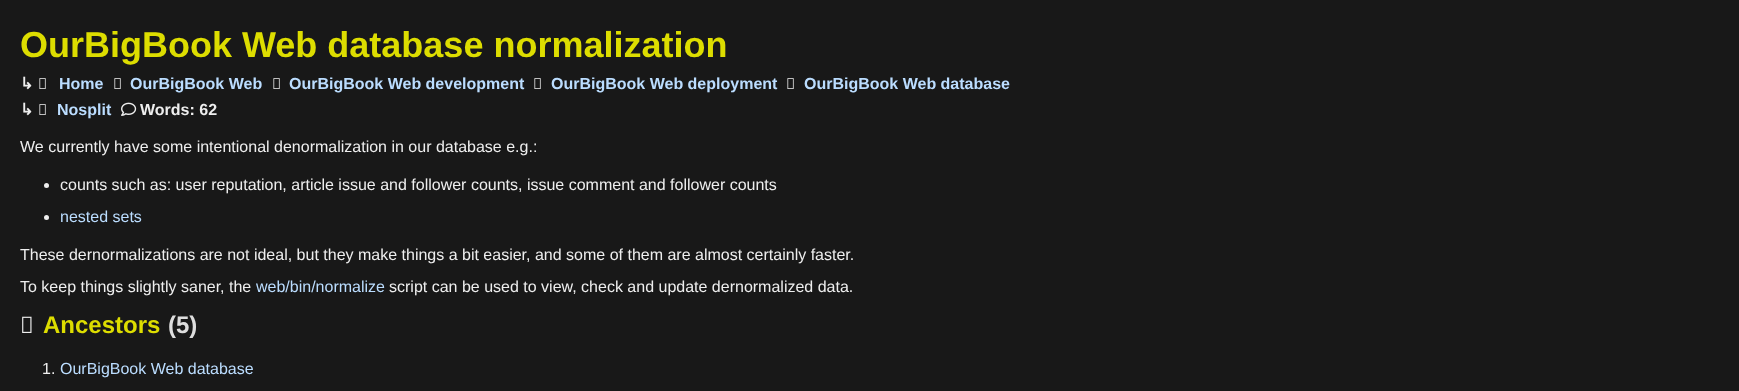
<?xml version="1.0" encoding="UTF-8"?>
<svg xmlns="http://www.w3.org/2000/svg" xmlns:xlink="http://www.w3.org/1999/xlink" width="1739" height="391">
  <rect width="100%" height="100%" fill="#181818" />
  <image x="39" y="78" width="7" height="11" xlink:href="image1.png" />
  <image x="114" y="78" width="7" height="11" xlink:href="image1.png" />
  <image x="273" y="78" width="7" height="11" xlink:href="image1.png" />
  <image x="534" y="78" width="7" height="11" xlink:href="image1.png" />
  <image x="787" y="78" width="7" height="11" xlink:href="image1.png" />
  <image x="39" y="104" width="7" height="11" xlink:href="image1.png" />
  <image x="121" y="102" width="16" height="14" xlink:href="image2.png" />
  <circle cx="46.5" cy="185.5" r="2.5" fill="#eeeeee" />
  <circle cx="46.5" cy="217.5" r="2.5" fill="#eeeeee" />
  <image x="22" y="316" width="10" height="17" xlink:href="image3.png" />
  <text x="20" y="57" style="font-family: Liberation Sans; font-size: 36px; font-weight: bold; fill: #dddd00">OurBigBook Web database normalization</text>
  <text x="20" y="89" style="font-family: DejaVu Sans; font-size: 16px; font-weight: bold; fill: #eeeeee">↳</text>
  <text x="59" y="89" style="font-family: Liberation Sans; font-size: 16px; font-weight: bold; fill: #bbddff">Home</text>
  <text x="130" y="89" style="font-family: Liberation Sans; font-size: 16px; font-weight: bold; fill: #bbddff">OurBigBook Web</text>
  <text x="289" y="89" style="font-family: Liberation Sans; font-size: 16px; font-weight: bold; fill: #bbddff">OurBigBook Web development</text>
  <text x="551" y="89" style="font-family: Liberation Sans; font-size: 16px; font-weight: bold; fill: #bbddff">OurBigBook Web deployment</text>
  <text x="804" y="89" style="font-family: Liberation Sans; font-size: 16px; font-weight: bold; fill: #bbddff">OurBigBook Web database</text>
  <text x="20" y="115" style="font-family: DejaVu Sans; font-size: 16px; font-weight: bold; fill: #eeeeee">↳</text>
  <text x="57" y="115" style="font-family: Liberation Sans; font-size: 16px; font-weight: bold; fill: #bbddff">Nosplit</text>
  <text x="140" y="115" style="font-family: Liberation Sans; font-size: 16px; font-weight: bold; fill: #eeeeee">Words: 62</text>
  <text x="20" y="152" style="font-family: Liberation Sans; font-size: 16px; fill: #eeeeee">We currently have some intentional denormalization in our database e.g.:</text>
  <text x="60" y="190" style="font-family: Liberation Sans; font-size: 16px; fill: #eeeeee">counts such as: user reputation, article issue and follower counts, issue comment and follower counts</text>
  <text x="60" y="222" style="font-family: Liberation Sans; font-size: 16px; fill: #bbddff">nested sets</text>
  <text x="20" y="260" style="font-family: Liberation Sans; font-size: 16px; fill: #eeeeee">These dernormalizations are not ideal, but they make things a bit easier, and some of them are almost certainly faster.</text>
  <text x="20" y="292" style="font-family: Liberation Sans; font-size: 16px; fill: #eeeeee">To keep things slightly saner, the</text>
  <text x="256" y="292" style="font-family: Liberation Sans; font-size: 16px; fill: #bbddff">web/bin/normalize</text>
  <text x="389" y="292" style="font-family: Liberation Sans; font-size: 16px; fill: #eeeeee">script can be used to view, check and update dernormalized data.</text>
  <text x="43" y="333" style="font-family: Liberation Sans; font-size: 24px; font-weight: bold; fill: #dddd00">Ancestors</text>
  <text x="168" y="333" style="font-family: Liberation Sans; font-size: 24px; font-weight: bold; fill: #dddddd">(5)</text>
  <text x="42" y="374" style="font-family: Liberation Sans; font-size: 16px; fill: #eeeeee">1.</text>
  <text x="60" y="374" style="font-family: Liberation Sans; font-size: 16px; fill: #bbddff">OurBigBook Web database</text>
</svg>
